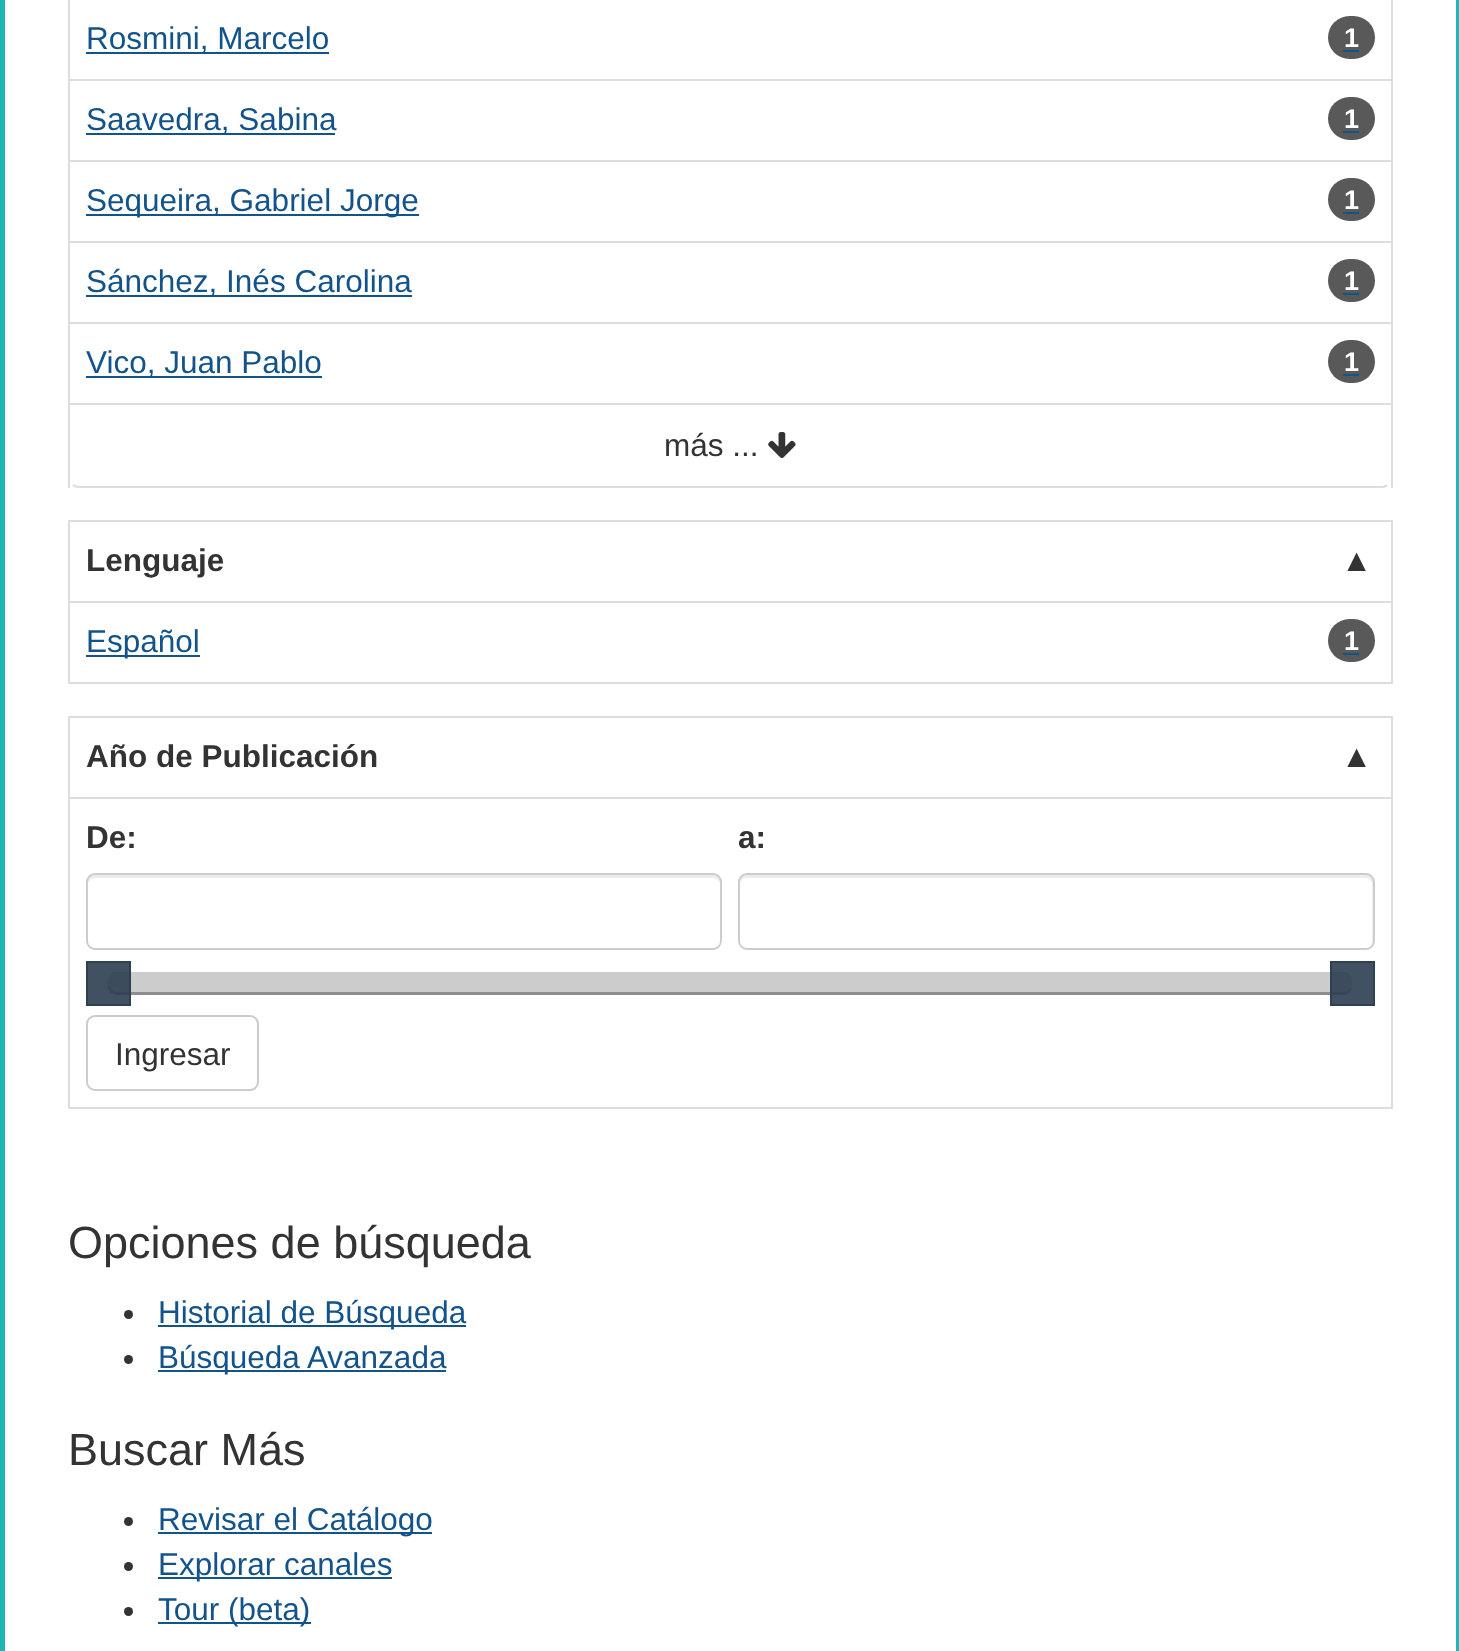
<?xml version="1.0" encoding="UTF-8"?>
<svg xmlns="http://www.w3.org/2000/svg" xmlns:xlink="http://www.w3.org/1999/xlink" width="1459" height="1651">
  <defs>
    <clipPath id="clip1"><rect x="70" width="1321" height="488" /></clipPath>
  </defs>
  <rect width="100%" height="100%" fill="#ffffff" />
  <rect x="1456" width="3" height="1651" fill="#1eb7b7" />
  <rect width="5" height="1651" fill="#1eb7b7" />
  <rect x="1391" width="2" height="488" fill="#dddddd" />
  <rect x="68" width="2" height="488" fill="#dddddd" />
  <rect x="70" y="79" width="1321" height="2" fill="#dddddd" />
  <rect x="86" y="52" width="243" height="2" fill="#12538b" />
  <rect x="1328" y="16" width="47" height="43" rx="21.5" fill="#595959" />
  <rect x="1343" y="50" width="16" height="2" fill="#12538b" />
  <rect x="70" y="160" width="1321" height="2" fill="#dddddd" />
  <rect x="86" y="133" width="249" height="2" fill="#12538b" />
  <rect x="1328" y="97" width="47" height="43" rx="21.5" fill="#595959" />
  <rect x="1343" y="131" width="16" height="2" fill="#12538b" />
  <rect x="70" y="241" width="1321" height="2" fill="#dddddd" />
  <rect x="86" y="214" width="333" height="2" fill="#12538b" />
  <rect x="1328" y="178" width="47" height="43" rx="21.5" fill="#595959" />
  <rect x="1343" y="212" width="16" height="2" fill="#12538b" />
  <rect x="70" y="322" width="1321" height="2" fill="#dddddd" />
  <rect x="86" y="295" width="326" height="2" fill="#12538b" />
  <rect x="1328" y="259" width="47" height="43" rx="21.5" fill="#595959" />
  <rect x="1343" y="293" width="16" height="2" fill="#12538b" />
  <rect x="70" y="403" width="1321" height="2" fill="#dddddd" />
  <rect x="86" y="376" width="236" height="2" fill="#12538b" />
  <rect x="1328" y="340" width="47" height="43" rx="21.5" fill="#595959" />
  <rect x="1343" y="374" width="16" height="2" fill="#12538b" />
  <g clip-path="url(#clip1)">
    <path d="M 1387 485 c -1.5 1.5 -3.5 2 -5.5 2 h -1302.5 c -2.5 0 -4.5 -0.5 -6 -2" fill="none" stroke="#dddddd" stroke-width="2.2" />
  </g>
  <image x="768" y="432" width="28" height="26" xlink:href="image1.png" />
  <rect x="69" y="521" width="1323" height="81" fill="none" stroke="#dddddd" stroke-width="2" />
  <rect x="1391" y="603" width="2" height="81" fill="#dddddd" />
  <rect x="68" y="603" width="2" height="81" fill="#dddddd" />
  <rect x="70" y="682" width="1321" height="2" fill="#dddddd" />
  <rect x="86" y="655" width="114" height="2" fill="#12538b" />
  <rect x="1328" y="619" width="47" height="43" rx="21.5" fill="#595959" />
  <rect x="1343" y="653" width="16" height="2" fill="#12538b" />
  <rect x="69" y="717" width="1323" height="81" fill="none" stroke="#dddddd" stroke-width="2" />
  <rect x="1391" y="799" width="2" height="310" fill="#dddddd" />
  <rect x="68" y="799" width="2" height="310" fill="#dddddd" />
  <rect x="70" y="1107" width="1321" height="2" fill="#dddddd" />
  <path d="M 94 878 h 619 c 4 0 7 3 7 6 v -2 c 0 -4 -3 -7 -7 -7 h -618 c -4 0 -7 3 -7 7 v 2 c 0 -3 3 -6 6 -6 z" fill="#ececec" />
  <rect x="87" y="874" width="634" height="75" rx="8" fill="none" stroke="#cccccc" stroke-width="2" />
  <path d="M 747 878 h 619 c 3 0 6 3 6 6 v 60 c 1 -1 1 -3 1 -4 v -58 c 0 -4 -3 -7 -7 -7 h -619 c -4 0 -7 3 -7 7 v 2 c 0 -3 3 -6 7 -6 z" fill="#ececec" />
  <rect x="739" y="874" width="635" height="75" rx="8" fill="none" stroke="#cccccc" stroke-width="2" />
  <path d="M 117 974 h 1226 l 4 1 c 3 1 4 3 5 6 l -2 -5 c -1 -3 -4 -4 -7 -4 h -1226 c -8 0 -10 9 -9 15 c -1 -5 2 -13 9 -13 z" fill="#000000" fill-opacity="0.4" />
  <rect x="108" y="972" width="1244" height="23" rx="9" fill="#cccccc" />
  <path d="M 108 981 v 5 c 0 5 4 9 9 9 h 1226 c 5 0 9 -4 9 -9 v -1 c -1 4 -4 7 -9 7 h -1226 c -6 0 -9 -6 -9 -11 z" fill="#000000" fill-opacity="0.3" />
  <rect x="86" y="961" width="45" height="45" fill="#2e3e51" fill-opacity="0.9" />
  <rect x="87" y="962" width="43" height="43" fill="none" stroke="#2e3e51" stroke-opacity="0.9" stroke-width="2" />
  <rect x="1330" y="961" width="45" height="45" fill="#2e3e51" fill-opacity="0.9" />
  <rect x="1331" y="962" width="43" height="43" fill="none" stroke="#2e3e51" stroke-opacity="0.9" stroke-width="2" />
  <rect x="87" y="1016" width="171" height="74" rx="8" fill="none" stroke="#cccccc" stroke-width="2" />
  <circle cx="128.5" cy="1314.5" r="4.5" fill="#333333" />
  <rect x="158" y="1325" width="308" height="2" fill="#12538b" />
  <circle cx="128.5" cy="1359.5" r="4.5" fill="#333333" />
  <rect x="158" y="1370" width="288" height="2" fill="#12538b" />
  <circle cx="128.5" cy="1521.5" r="4.5" fill="#333333" />
  <rect x="158" y="1532" width="274" height="2" fill="#12538b" />
  <circle cx="128.5" cy="1566.5" r="4.5" fill="#333333" />
  <rect x="158" y="1577" width="234" height="2" fill="#12538b" />
  <circle cx="128.5" cy="1611.5" r="4.5" fill="#333333" />
  <rect x="158" y="1622" width="153" height="2" fill="#12538b" />
  <text x="86" y="49" style="font-family: Liberation Sans; font-size: 31.5px; fill: #12538b">Rosmini, Marcelo</text>
  <text x="1344" y="47" style="font-family: Liberation Sans; font-size: 27px; font-weight: bold; fill: #ffffff">1</text>
  <text x="86" y="130" style="font-family: Liberation Sans; font-size: 31.5px; fill: #12538b">Saavedra, Sabina</text>
  <text x="1344" y="128" style="font-family: Liberation Sans; font-size: 27px; font-weight: bold; fill: #ffffff">1</text>
  <text x="86" y="211" style="font-family: Liberation Sans; font-size: 31.5px; fill: #12538b">Sequeira, Gabriel Jorge</text>
  <text x="1344" y="209" style="font-family: Liberation Sans; font-size: 27px; font-weight: bold; fill: #ffffff">1</text>
  <text x="86" y="292" style="font-family: Liberation Sans; font-size: 31.5px; fill: #12538b">Sánchez, Inés Carolina</text>
  <text x="1344" y="290" style="font-family: Liberation Sans; font-size: 27px; font-weight: bold; fill: #ffffff">1</text>
  <text x="86" y="373" style="font-family: Liberation Sans; font-size: 31.5px; fill: #12538b">Vico, Juan Pablo</text>
  <text x="1344" y="371" style="font-family: Liberation Sans; font-size: 27px; font-weight: bold; fill: #ffffff">1</text>
  <text x="664" y="456" style="font-family: Liberation Sans; font-size: 31.5px; fill: #333333">más ...</text>
  <text x="86" y="571" style="font-family: Liberation Sans; font-size: 31.5px; font-weight: bold; fill: #333333">Lenguaje</text>
  <text x="1341" y="571" style="font-family: Liberation Sans; font-size: 31.5px; font-weight: bold; fill: #333333">▲</text>
  <text x="86" y="652" style="font-family: Liberation Sans; font-size: 31.5px; fill: #12538b">Español</text>
  <text x="1344" y="650" style="font-family: Liberation Sans; font-size: 27px; font-weight: bold; fill: #ffffff">1</text>
  <text x="86" y="767" style="font-family: Liberation Sans; font-size: 31.5px; font-weight: bold; fill: #333333">Año de Publicación</text>
  <text x="1341" y="767" style="font-family: Liberation Sans; font-size: 31.5px; font-weight: bold; fill: #333333">▲</text>
  <text x="86" y="848" style="font-family: Liberation Sans; font-size: 31.5px; font-weight: bold; fill: #333333">De:</text>
  <text x="738" y="848" style="font-family: Liberation Sans; font-size: 31.5px; font-weight: bold; fill: #333333">a:</text>
  <text x="115" y="1065" style="font-family: Liberation Sans; font-size: 31.5px; fill: #333333">Ingresar</text>
  <text x="68" y="1258" style="font-family: Liberation Sans; font-size: 45px; fill: #333333">Opciones de búsqueda</text>
  <text x="158" y="1323" style="font-family: Liberation Sans; font-size: 31.5px; fill: #12538b">Historial de Búsqueda</text>
  <text x="158" y="1368" style="font-family: Liberation Sans; font-size: 31.5px; fill: #12538b">Búsqueda Avanzada</text>
  <text x="68" y="1465" style="font-family: Liberation Sans; font-size: 45px; fill: #333333">Buscar Más</text>
  <text x="158" y="1530" style="font-family: Liberation Sans; font-size: 31.5px; fill: #12538b">Revisar el Catálogo</text>
  <text x="158" y="1575" style="font-family: Liberation Sans; font-size: 31.5px; fill: #12538b">Explorar canales</text>
  <text x="158" y="1620" style="font-family: Liberation Sans; font-size: 31.5px; fill: #12538b">Tour (beta)</text>
</svg>
